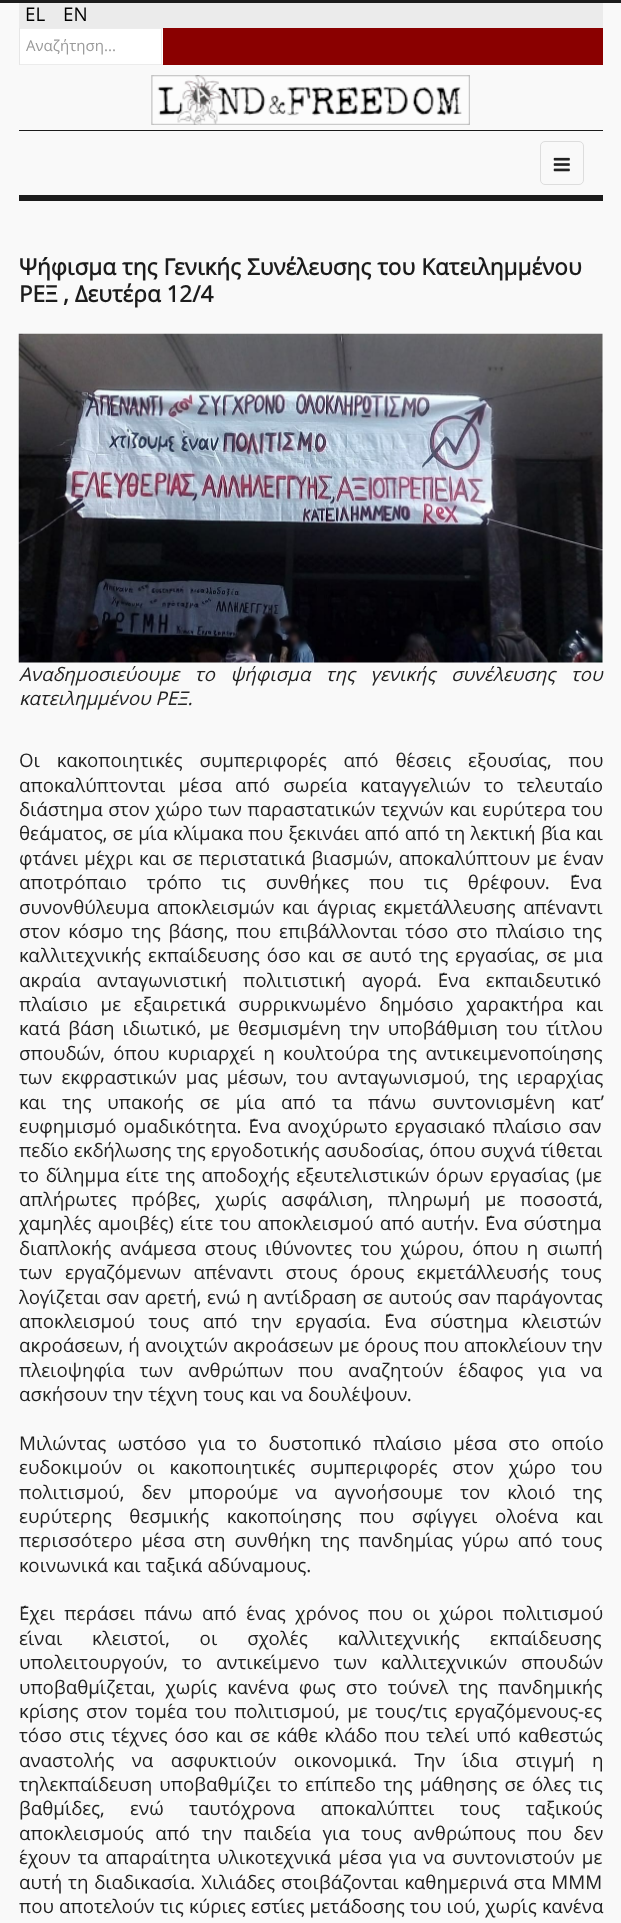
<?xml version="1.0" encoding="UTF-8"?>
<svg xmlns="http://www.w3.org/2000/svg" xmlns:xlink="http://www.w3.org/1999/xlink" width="621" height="1923">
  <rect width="100%" height="100%" fill="#1c1c1c" />
  <rect y="3" width="621" height="1920" fill="#f9f9f9" />
  <rect x="19" y="3" width="584" height="25" fill="#ebebeb" />
  <rect x="163" y="28" width="440" height="37" fill="#8a0000" />
  <rect x="20" y="29" width="143" height="35" fill="#ffffff" />
  <rect x="19" y="28" width="144" height="1" fill="#ececec" />
  <rect x="161" y="28" width="1" height="37" fill="#ececec" />
  <rect x="19" y="64" width="144" height="1" fill="#ececec" />
  <rect x="19" y="28" width="1" height="37" fill="#e6e6e6" />
  <image x="151" y="75" width="319" height="50" xlink:href="image1.png" />
  <rect x="19" y="130" width="584" height="1" fill="#1c1c1c" />
  <rect x="19" y="195" width="584" height="6" fill="#1c1c1c" />
  <rect x="540.5" y="141.5" width="43" height="43" rx="4.5" fill="none" stroke="#dddddd" />
  <image x="553" y="157" width="17" height="15" xlink:href="image2.png" />
  <image x="18" y="333" width="585" height="330" xlink:href="image3.png" />
  <text x="25" y="21" style="font-family: Open Sans; font-size: 18.75px; fill: #000000">EL</text>
  <text x="63" y="21" style="font-family: Open Sans; font-size: 18.75px; fill: #000000">EN</text>
  <text x="26" y="51" style="font-family: Open Sans; font-size: 15px; fill: #999999">Αναζήτηση...</text>
  <text x="19" y="275" word-spacing="0.25" style="font-family: Open Sans; font-size: 22.5px; font-weight: bold; fill: #1c1c1c">Ψήφισμα της Γενικής Συνέλευσης του Κατειλημμένου</text>
  <text x="19" y="302" style="font-family: Open Sans; font-size: 22.5px; font-weight: bold; fill: #1c1c1c">ΡΕΞ , Δευτέρα 12/4</text>
  <text x="19" y="681" word-spacing="10.5" style="font-family: Open Sans; font-size: 18.75px; font-style: italic; fill: #222222">Αναδημοσιεύουμε το ψήφισμα της γενικής συνέλευσης του</text>
  <text x="19" y="705" style="font-family: Open Sans; font-size: 18.75px; font-style: italic; fill: #222222">κατειλημμένου ΡΕΞ.</text>
  <text x="19" y="767" word-spacing="12" style="font-family: Open Sans; font-size: 18.75px; fill: #222222">Οι κακοποιητικές συμπεριφορές από θέσεις εξουσίας, που</text>
  <text x="19" y="792" word-spacing="8.25" style="font-family: Open Sans; font-size: 18.75px; fill: #222222">αποκαλύπτονται μέσα από σωρεία καταγγελιών το τελευταίο</text>
  <text x="19" y="816" word-spacing="0.75" style="font-family: Open Sans; font-size: 18.75px; fill: #222222">διάστημα στον χώρο των παραστατικών τεχνών και ευρύτερα του</text>
  <text x="19" y="840" word-spacing="0.4" style="font-family: Open Sans; font-size: 18.75px; fill: #222222">θεάματος, σε μία κλίμακα που ξεκινάει από από τη λεκτική βία και</text>
  <text x="19" y="865" word-spacing="1.25" style="font-family: Open Sans; font-size: 18.75px; fill: #222222">φτάνει μέχρι και σε περιστατικά βιασμών, αποκαλύπτουν με έναν</text>
  <text x="19" y="889" word-spacing="15" style="font-family: Open Sans; font-size: 18.75px; fill: #222222">αποτρόπαιο τρόπο τις συνθήκες που τις θρέφουν. Ένα</text>
  <text x="19" y="914" word-spacing="2.75" style="font-family: Open Sans; font-size: 18.75px; fill: #222222">συνονθύλευμα αποκλεισμών και άγριας εκμετάλλευσης απέναντι</text>
  <text x="19" y="938" word-spacing="3" style="font-family: Open Sans; font-size: 18.75px; fill: #222222">στον κόσμο της βάσης, που επιβάλλονται τόσο στο πλαίσιο της</text>
  <text x="19" y="962" word-spacing="2" style="font-family: Open Sans; font-size: 18.75px; fill: #222222">καλλιτεχνικής εκπαίδευσης όσο και σε αυτό της εργασίας, σε μια</text>
  <text x="19" y="987" word-spacing="11" style="font-family: Open Sans; font-size: 18.75px; fill: #222222">ακραία ανταγωνιστική πολιτιστική αγορά. Ένα εκπαιδευτικό</text>
  <text x="19" y="1011" word-spacing="7.75" style="font-family: Open Sans; font-size: 18.75px; fill: #222222">πλαίσιο με εξαιρετικά συρρικνωμένο δημόσιο χαρακτήρα και</text>
  <text x="19" y="1035" word-spacing="3.25" style="font-family: Open Sans; font-size: 18.75px; fill: #222222">κατά βάση ιδιωτικό, με θεσμισμένη την υποβάθμιση του τίτλου</text>
  <text x="19" y="1060" word-spacing="3.5" style="font-family: Open Sans; font-size: 18.75px; fill: #222222">σπουδών, όπου κυριαρχεί η κουλτούρα της αντικειμενοποίησης</text>
  <text x="19" y="1084" word-spacing="4" style="font-family: Open Sans; font-size: 18.75px; fill: #222222">των εκφραστικών μας μέσων, του ανταγωνισμού, της ιεραρχίας</text>
  <text x="19" y="1109" word-spacing="11" style="font-family: Open Sans; font-size: 18.75px; fill: #222222">και της υπακοής σε μία από τα πάνω συντονισμένη κατ’</text>
  <text x="19" y="1133" word-spacing="2" style="font-family: Open Sans; font-size: 18.75px; fill: #222222">ευφημισμό ομαδικότητα. Ένα ανοχύρωτο εργασιακό πλαίσιο σαν</text>
  <text x="19" y="1157" word-spacing="0.25" style="font-family: Open Sans; font-size: 18.75px; fill: #222222">πεδίο εκδήλωσης της εργοδοτικής ασυδοσίας, όπου συχνά τίθεται</text>
  <text x="19" y="1182" word-spacing="1.75" style="font-family: Open Sans; font-size: 18.75px; fill: #222222">το δίλημμα είτε της αποδοχής εξευτελιστικών όρων εργασίας (με</text>
  <text x="19" y="1206" word-spacing="9.75" style="font-family: Open Sans; font-size: 18.75px; fill: #222222">απλήρωτες πρόβες, χωρίς ασφάλιση, πληρωμή με ποσοστά,</text>
  <text x="19" y="1230" word-spacing="1.5" style="font-family: Open Sans; font-size: 18.75px; fill: #222222">χαμηλές αμοιβές) είτε του αποκλεισμού από αυτήν. Ένα σύστημα</text>
  <text x="19" y="1255" word-spacing="3.5" style="font-family: Open Sans; font-size: 18.75px; fill: #222222">διαπλοκής ανάμεσα στους ιθύνοντες του χώρου, όπου η σιωπή</text>
  <text x="19" y="1279" word-spacing="7.5" style="font-family: Open Sans; font-size: 18.75px; fill: #222222">των εργαζόμενων απέναντι στους όρους εκμετάλλευσής τους</text>
  <text x="19" y="1304" word-spacing="0.75" style="font-family: Open Sans; font-size: 18.75px; fill: #222222">λογίζεται σαν αρετή, ενώ η αντίδραση σε αυτούς σαν παράγοντας</text>
  <text x="19" y="1328" word-spacing="8.75" style="font-family: Open Sans; font-size: 18.75px; fill: #222222">αποκλεισμού τους από την εργασία. Ένα σύστημα κλειστών</text>
  <text x="19" y="1352" word-spacing="0.25" style="font-family: Open Sans; font-size: 18.75px; fill: #222222">ακροάσεων, ή ανοιχτών ακροάσεων με όρους που αποκλείουν την</text>
  <text x="19" y="1377" word-spacing="10" style="font-family: Open Sans; font-size: 18.75px; fill: #222222">πλειοψηφία των ανθρώπων που αναζητούν έδαφος για να</text>
  <text x="19" y="1401" word-spacing="0.25" style="font-family: Open Sans; font-size: 18.75px; fill: #222222">ασκήσουν την τέχνη τους και να δουλέψουν.</text>
  <text x="19" y="1450" word-spacing="6.5" style="font-family: Open Sans; font-size: 18.75px; fill: #222222">Μιλώντας ωστόσο για το δυστοπικό πλαίσιο μέσα στο οποίο</text>
  <text x="19" y="1474" word-spacing="10" style="font-family: Open Sans; font-size: 18.75px; fill: #222222">ευδοκιμούν οι κακοποιητικές συμπεριφορές στον χώρο του</text>
  <text x="19" y="1499" word-spacing="12.25" style="font-family: Open Sans; font-size: 18.75px; fill: #222222">πολιτισμού, δεν μπορούμε να αγνοήσουμε τον κλοιό της</text>
  <text x="19" y="1523" word-spacing="12.75" style="font-family: Open Sans; font-size: 18.75px; fill: #222222">ευρύτερης θεσμικής κακοποίησης που σφίγγει ολοένα και</text>
  <text x="19" y="1547" word-spacing="4" style="font-family: Open Sans; font-size: 18.75px; fill: #222222">περισσότερο μέσα στη συνθήκη της πανδημίας γύρω από τους</text>
  <text x="19" y="1572" word-spacing="0.5" style="font-family: Open Sans; font-size: 18.75px; fill: #222222">κοινωνικά και ταξικά αδύναμους.</text>
  <text x="19" y="1620" word-spacing="4.5" style="font-family: Open Sans; font-size: 18.75px; fill: #222222">Έχει περάσει πάνω από ένας χρόνος που οι χώροι πολιτισμού</text>
  <text x="19" y="1645" word-spacing="25" style="font-family: Open Sans; font-size: 18.75px; fill: #222222">είναι κλειστοί, οι σχολές καλλιτεχνικής εκπαίδευσης</text>
  <text x="19" y="1669" word-spacing="9" style="font-family: Open Sans; font-size: 18.75px; fill: #222222">υπολειτουργούν, το αντικείμενο των καλλιτεχνικών σπουδών</text>
  <text x="19" y="1694" word-spacing="5.25" style="font-family: Open Sans; font-size: 18.75px; fill: #222222">υποβαθμίζεται, χωρίς κανένα φως στο τούνελ της πανδημικής</text>
  <text x="19" y="1718" word-spacing="2.75" style="font-family: Open Sans; font-size: 18.75px; fill: #222222">κρίσης στον τομέα του πολιτισμού, με τους/τις εργαζόμενους-ες</text>
  <text x="19" y="1742" word-spacing="2" style="font-family: Open Sans; font-size: 18.75px; fill: #222222">τόσο στις τέχνες όσο και σε κάθε κλάδο που τελεί υπό καθεστώς</text>
  <text x="19" y="1767" word-spacing="12.5" style="font-family: Open Sans; font-size: 18.75px; fill: #222222">αναστολής να ασφυκτιούν οικονομικά. Την ίδια στιγμή η</text>
  <text x="19" y="1791" word-spacing="2.25" style="font-family: Open Sans; font-size: 18.75px; fill: #222222">τηλεκπαίδευση υποβαθμίζει το επίπεδο της μάθησης σε όλες τις</text>
  <text x="19" y="1815" word-spacing="20.5" style="font-family: Open Sans; font-size: 18.75px; fill: #222222">βαθμίδες, ενώ ταυτόχρονα αποκαλύπτει τους ταξικούς</text>
  <text x="19" y="1840" word-spacing="6.5" style="font-family: Open Sans; font-size: 18.75px; fill: #222222">αποκλεισμούς από την παιδεία για τους ανθρώπους που δεν</text>
  <text x="19" y="1864" word-spacing="2.25" style="font-family: Open Sans; font-size: 18.75px; fill: #222222">έχουν τα απαραίτητα υλικοτεχνικά μέσα για να συντονιστούν με</text>
  <text x="19" y="1889" word-spacing="1" style="font-family: Open Sans; font-size: 18.75px; fill: #222222">αυτή τη διαδικασία. Χιλιάδες στοιβάζονται καθημερινά στα ΜΜΜ</text>
  <text x="19" y="1913" word-spacing="0.25" style="font-family: Open Sans; font-size: 18.75px; fill: #222222">που αποτελούν τις κύριες εστίες μετάδοσης του ιού, χωρίς κανένα</text>
</svg>
